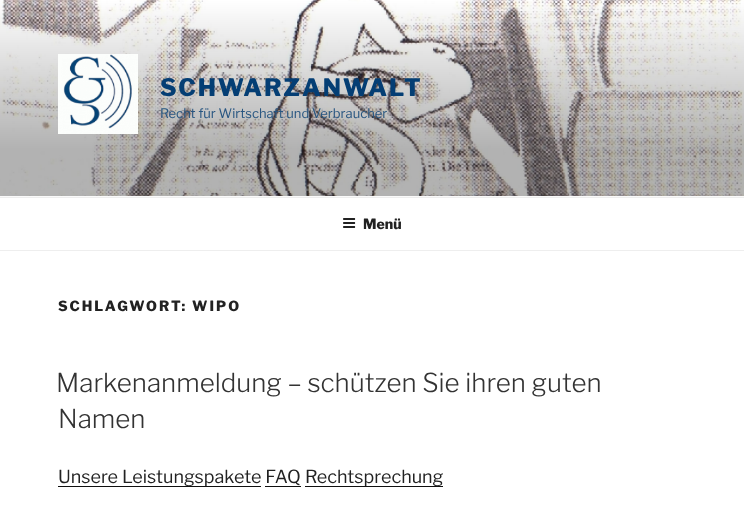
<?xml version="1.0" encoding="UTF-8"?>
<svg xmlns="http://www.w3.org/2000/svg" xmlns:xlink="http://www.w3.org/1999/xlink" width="744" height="512">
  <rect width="100%" height="100%" fill="#ffffff" />
  <rect y="196" width="744" height="1" fill="#fafafa" />
  <image x="0" y="0" width="744" height="196" xlink:href="image1.png" />
  <image x="58" y="54" width="80" height="80" xlink:href="image2.png" />
  <rect y="197" width="744" height="1" fill="#eeeeee" />
  <rect y="250" width="744" height="1" fill="#eeeeee" />
  <image x="343" y="218" width="13" height="10" xlink:href="image3.png" />
  <rect x="58" y="486" width="203" height="1" fill="#0f0f0f" />
  <rect x="305" y="486" width="138" height="1" fill="#0f0f0f" />
  <text x="160" y="96" style="font-family: Libre Franklin; font-size: 24px; font-weight: 100; letter-spacing: 1.9px; fill: #043e74">SCHWARZANWALT</text>
  <text x="160" y="118" style="font-family: 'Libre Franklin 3'; font-size: 13px; font-weight: 100; fill: #285681">Recht für Wirtschaft und Verbraucher</text>
  <text x="363" y="229" style="font-family: Libre Franklin; font-size: 14px; font-weight: 100; fill: #222222">Menü</text>
  <text x="58" y="311" style="font-family: Libre Franklin; font-size: 14px; font-weight: 100; letter-spacing: 2px; fill: #222222">SCHLAGWORT: WIPO</text>
  <text x="56" y="392" style="font-family: 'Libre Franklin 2'; font-size: 26px; font-weight: 100; fill: #333333">Markenanmeldung – schützen Sie ihren guten</text>
  <text x="58" y="428" style="font-family: 'Libre Franklin 2'; font-size: 26px; font-weight: 100; fill: #333333">Namen</text>
  <text x="58" y="483" style="font-family: 'Libre Franklin 3'; font-size: 18px; font-weight: 100; fill: #222222">Unsere Leistungspakete FAQ</text>
  <text x="305" y="483" style="font-family: 'Libre Franklin 3'; font-size: 18px; font-weight: 100; fill: #222222">Rechtsprechung</text>
  <rect x="265" y="486" width="36" height="1" fill="#0f0f0f" />
</svg>
